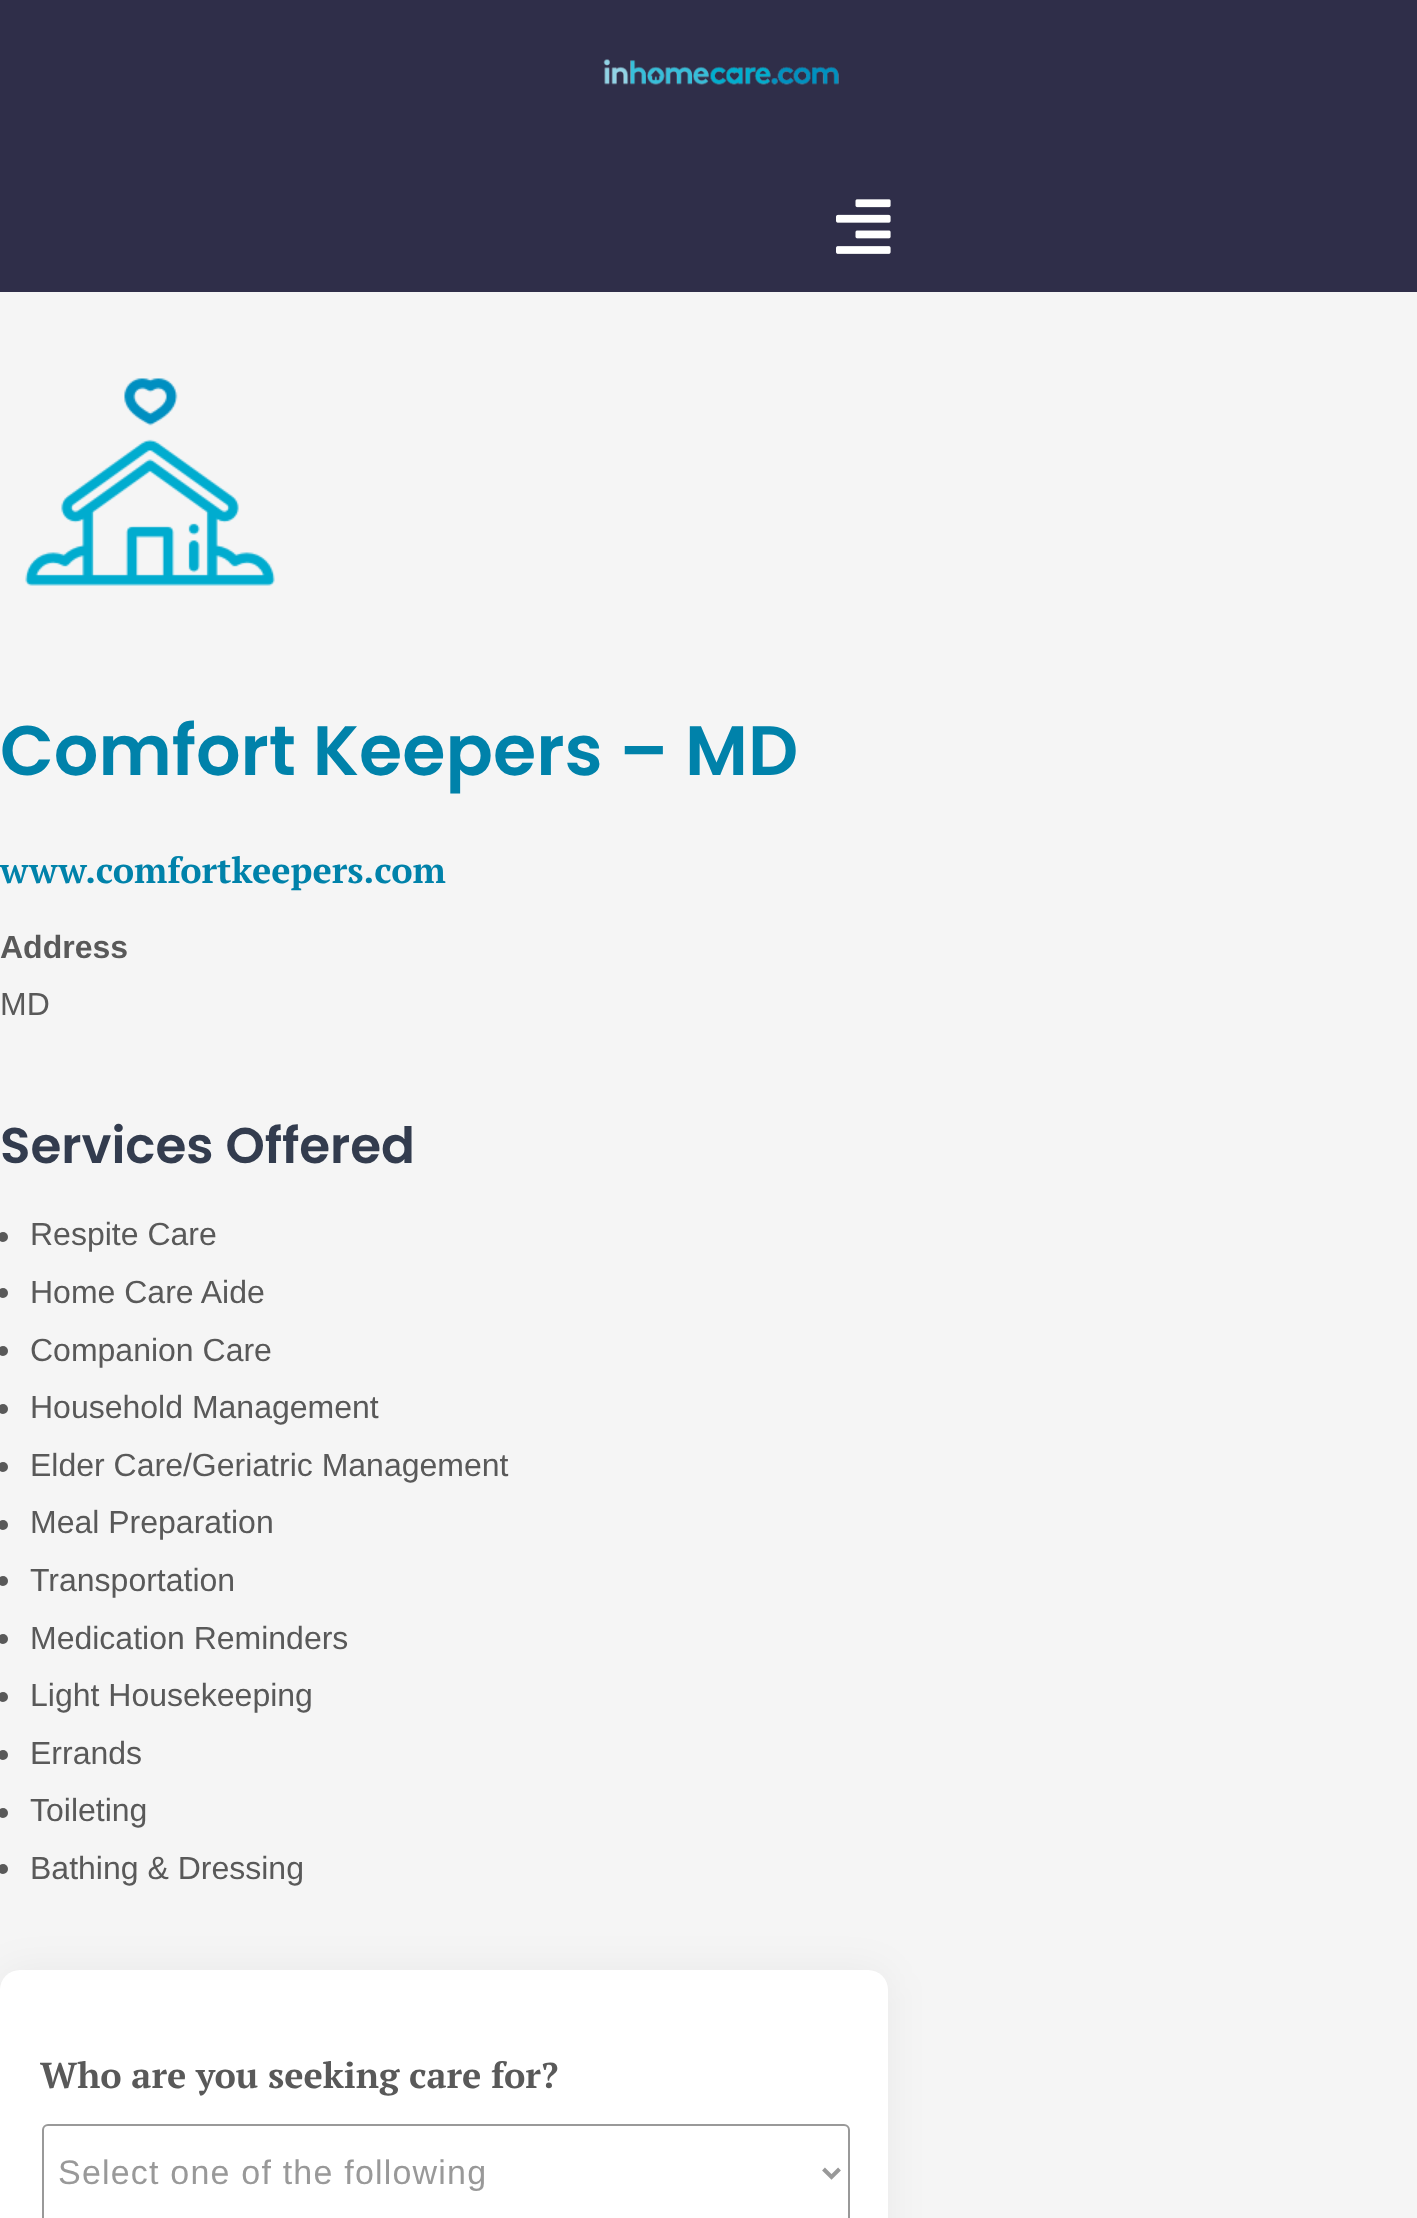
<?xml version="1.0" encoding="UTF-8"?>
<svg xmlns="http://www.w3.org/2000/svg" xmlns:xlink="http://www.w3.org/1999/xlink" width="1417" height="2218">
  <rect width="100%" height="100%" fill="#f5f5f5" />
  <rect width="1417" height="292" fill="#2f2e49" />
  <image x="836" y="199" width="55" height="55" xlink:href="image1.png" />
  <image x="603" y="59" width="236" height="26" xlink:href="image2.png" />
  <image x="25" y="378" width="250" height="208" xlink:href="image3.png" />
  <circle cx="3" cy="1237" r="5" fill="#595959" />
  <circle cx="3" cy="1293" r="5" fill="#595959" />
  <circle cx="3" cy="1351" r="5" fill="#595959" />
  <circle cx="3" cy="1409" r="5" fill="#595959" />
  <circle cx="3" cy="1467" r="5" fill="#595959" />
  <circle cx="3" cy="1525" r="5" fill="#595959" />
  <circle cx="3" cy="1581" r="5" fill="#595959" />
  <circle cx="3" cy="1639" r="5" fill="#595959" />
  <circle cx="3" cy="1697" r="5" fill="#595959" />
  <circle cx="3" cy="1755" r="5" fill="#595959" />
  <circle cx="3" cy="1813" r="5" fill="#595959" />
  <circle cx="3" cy="1869" r="5" fill="#595959" />
  <rect y="1970" width="888" height="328" rx="20" fill="#000000" fill-opacity="0.05" filter="blur(20px)" />
  <rect y="1970" width="888" height="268" rx="20" fill="#ffffff" />
  <rect x="43" y="2125" width="806" height="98" rx="5" fill="none" stroke="#999999" stroke-width="2" />
  <path d="M 823.5 2169 l 8 8 l 8 -8" fill="none" stroke="#999999" stroke-width="4" />
  <text x="0" y="775" style="font-family: Poppins; font-size: 70px; font-weight: 600; fill: #0082aa">Comfort Keepers – MD</text>
  <text x="0" y="883" style="font-family: PT Serif; font-size: 36px; font-weight: bold; fill: #0082aa">www.comfortkeepers.com</text>
  <text x="0" y="958" style="font-family: Liberation Sans; font-size: 32px; font-weight: bold; fill: #595959">Address</text>
  <text x="0" y="1015" style="font-family: Liberation Sans; font-size: 32px; fill: #595959">MD</text>
  <text x="0" y="1163" style="font-family: Poppins; font-size: 50px; font-weight: 600; fill: #333c4e">Services Offered</text>
  <text x="30" y="1245" style="font-family: Liberation Sans; font-size: 32px; fill: #595959">Respite Care</text>
  <text x="30" y="1303" style="font-family: Liberation Sans; font-size: 32px; fill: #595959">Home Care Aide</text>
  <text x="30" y="1361" style="font-family: Liberation Sans; font-size: 32px; fill: #595959">Companion Care</text>
  <text x="30" y="1418" style="font-family: Liberation Sans; font-size: 32px; fill: #595959">Household Management</text>
  <text x="30" y="1476" style="font-family: Liberation Sans; font-size: 32px; fill: #595959">Elder Care/Geriatric Management</text>
  <text x="30" y="1533" style="font-family: Liberation Sans; font-size: 32px; fill: #595959">Meal Preparation</text>
  <text x="30" y="1591" style="font-family: Liberation Sans; font-size: 32px; fill: #595959">Transportation</text>
  <text x="30" y="1649" style="font-family: Liberation Sans; font-size: 32px; fill: #595959">Medication Reminders</text>
  <text x="30" y="1706" style="font-family: Liberation Sans; font-size: 32px; fill: #595959">Light Housekeeping</text>
  <text x="30" y="1764" style="font-family: Liberation Sans; font-size: 32px; fill: #595959">Errands</text>
  <text x="30" y="1821" style="font-family: Liberation Sans; font-size: 32px; fill: #595959">Toileting</text>
  <text x="30" y="1879" style="font-family: Liberation Sans; font-size: 32px; fill: #595959">Bathing &amp; Dressing</text>
  <text x="40" y="2088" style="font-family: PT Serif; font-size: 36px; font-weight: bold; fill: #595959">Who are you seeking care for?</text>
  <text x="58" y="2184" style="font-family: Liberation Sans; font-size: 34px; letter-spacing: 1.2px; fill: #999999">Select one of the following</text>
</svg>
